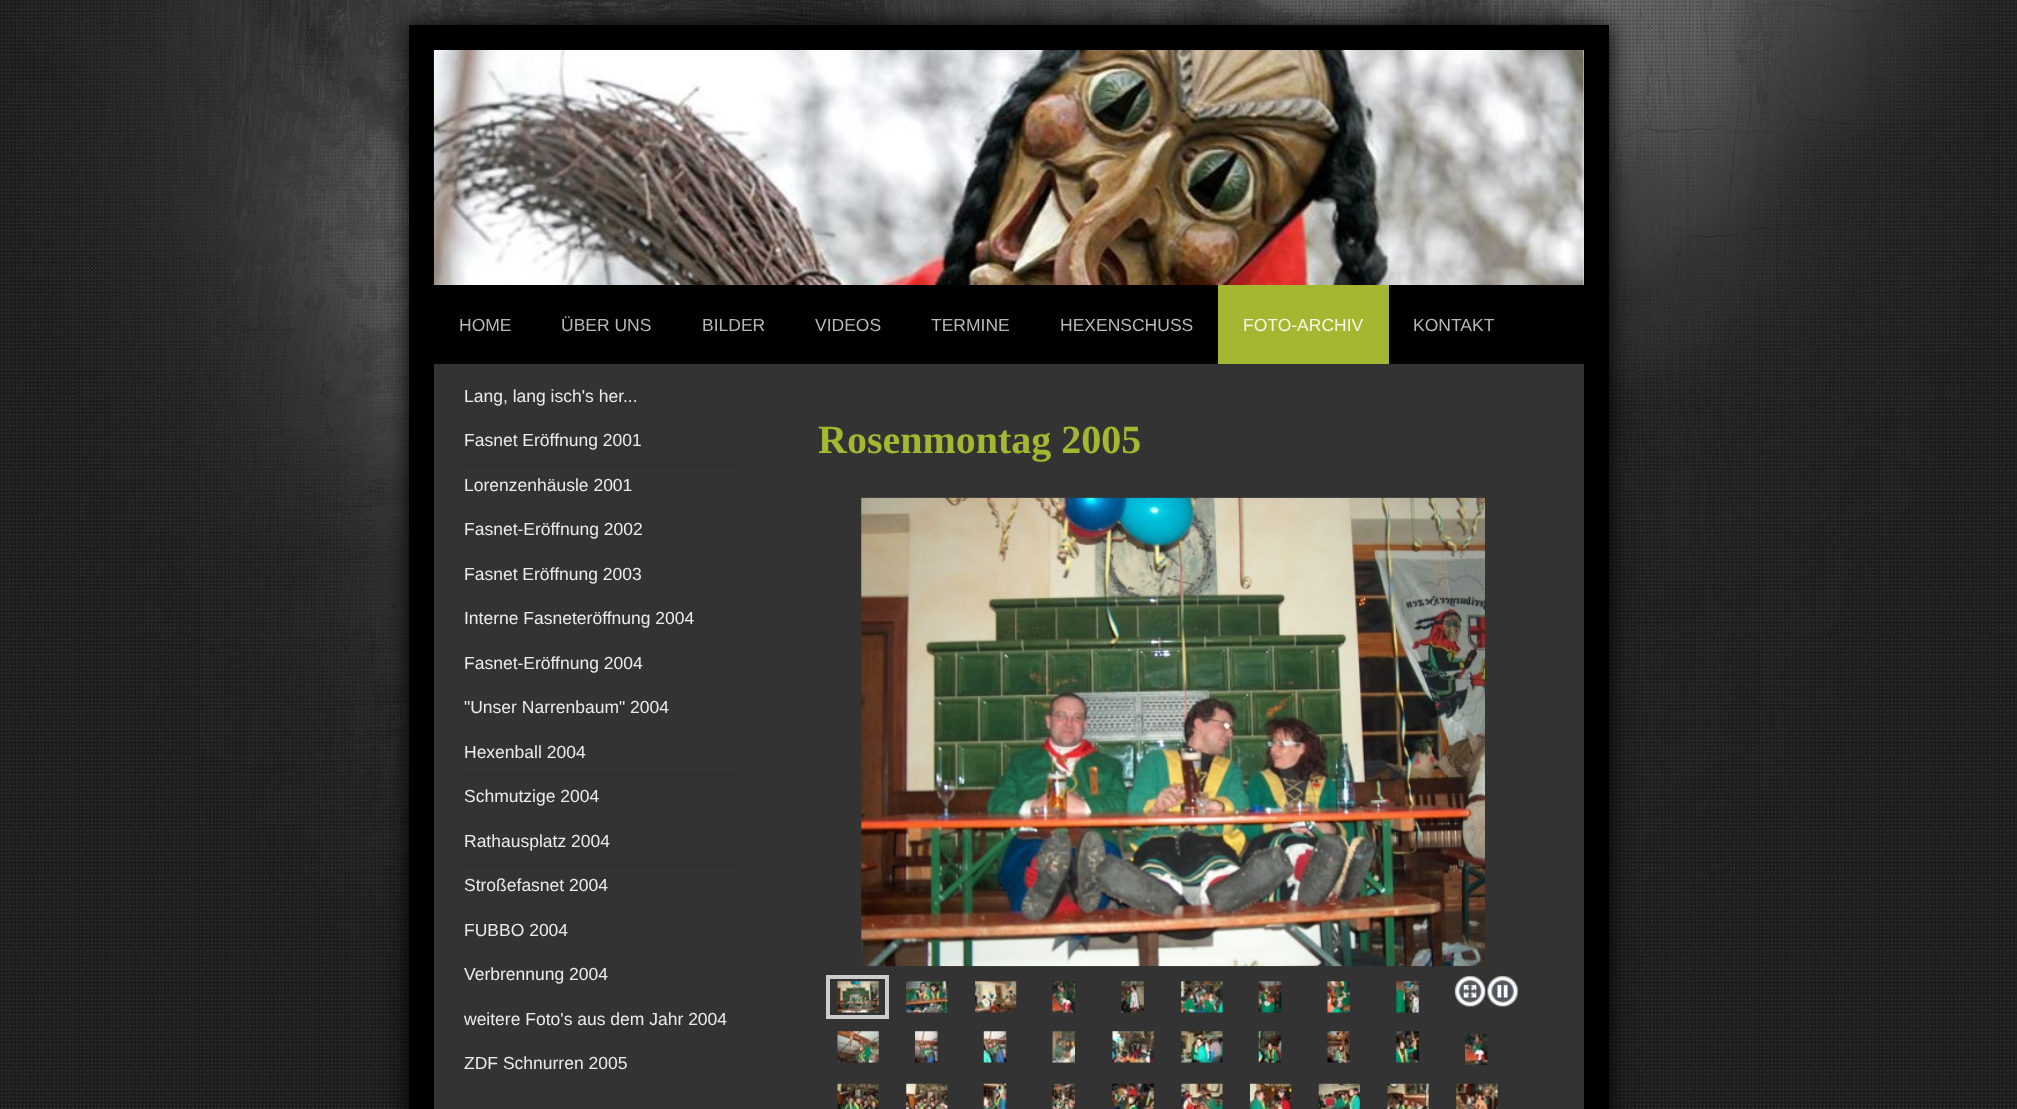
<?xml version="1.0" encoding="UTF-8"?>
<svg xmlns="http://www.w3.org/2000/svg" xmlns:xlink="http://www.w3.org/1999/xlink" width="2017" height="1109">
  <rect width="100%" height="100%" fill="#ffffff" />
  <image x="0" y="0" width="2017" height="1109" xlink:href="image1.png" />
  <rect x="409" y="25" width="1200" height="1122" fill="#000000" filter="blur(12.5px)" />
  <rect x="409" y="25" width="1200" height="1084" fill="#000000" />
  <rect x="1583" y="50" width="1" height="235" fill="#eeeeee" />
  <image x="433" y="50" width="1151" height="235" xlink:href="image2.png" />
  <rect x="1218" y="285" width="171" height="79" fill="#a5b730" />
  <rect x="434" y="364" width="1150" height="745" fill="#333333" />
  <rect x="459" y="419" width="277" height="1" fill="#2e2e2e" />
  <rect x="459" y="464" width="277" height="1" fill="#2e2e2e" />
  <rect x="459" y="508" width="277" height="1" fill="#2e2e2e" />
  <rect x="459" y="553" width="277" height="1" fill="#2e2e2e" />
  <rect x="459" y="598" width="277" height="1" fill="#2e2e2e" />
  <rect x="459" y="641" width="277" height="1" fill="#2e2e2e" />
  <rect x="459" y="686" width="277" height="1" fill="#2e2e2e" />
  <rect x="459" y="730" width="277" height="1" fill="#2e2e2e" />
  <rect x="459" y="775" width="277" height="1" fill="#2e2e2e" />
  <rect x="459" y="820" width="277" height="1" fill="#2e2e2e" />
  <rect x="459" y="864" width="277" height="1" fill="#2e2e2e" />
  <rect x="459" y="909" width="277" height="1" fill="#2e2e2e" />
  <rect x="459" y="953" width="277" height="1" fill="#2e2e2e" />
  <rect x="459" y="998" width="277" height="1" fill="#2e2e2e" />
  <rect x="459" y="1043" width="277" height="1" fill="#2e2e2e" />
  <rect x="459" y="1086" width="277" height="1" fill="#2e2e2e" />
  <image x="861" y="497" width="624" height="470" xlink:href="image3.png" />
  <rect x="828" y="977" width="59" height="40" fill="none" stroke="#cccccc" stroke-width="4" />
  <image x="837" y="981" width="42" height="32" xlink:href="image4.png" />
  <image x="906" y="981" width="42" height="32" xlink:href="image5.png" />
  <image x="975" y="981" width="42" height="32" xlink:href="image6.png" />
  <image x="1052" y="981" width="23" height="32" xlink:href="image7.png" />
  <image x="1121" y="981" width="23" height="32" xlink:href="image8.png" />
  <image x="1181" y="981" width="42" height="32" xlink:href="image9.png" />
  <image x="1258" y="981" width="24" height="32" xlink:href="image10.png" />
  <image x="1327" y="981" width="23" height="32" xlink:href="image11.png" />
  <image x="1396" y="981" width="23" height="32" xlink:href="image12.png" />
  <image x="1454" y="975" width="33" height="32" xlink:href="image13.png" />
  <image x="1487" y="975" width="32" height="32" xlink:href="image14.png" />
  <image x="837" y="1031" width="42" height="32" xlink:href="image15.png" />
  <image x="915" y="1031" width="23" height="32" xlink:href="image16.png" />
  <image x="983" y="1031" width="24" height="32" xlink:href="image17.png" />
  <image x="1052" y="1031" width="23" height="32" xlink:href="image18.png" />
  <image x="1112" y="1031" width="42" height="32" xlink:href="image19.png" />
  <image x="1181" y="1031" width="42" height="32" xlink:href="image20.png" />
  <image x="1258" y="1031" width="24" height="32" xlink:href="image21.png" />
  <image x="1327" y="1031" width="23" height="32" xlink:href="image22.png" />
  <image x="1396" y="1031" width="23" height="32" xlink:href="image23.png" />
  <image x="1465" y="1033" width="23" height="32" xlink:href="image24.png" />
  <image x="837" y="1083" width="42" height="26" xlink:href="image25.png" />
  <image x="906" y="1083" width="42" height="26" xlink:href="image26.png" />
  <image x="983" y="1083" width="24" height="26" xlink:href="image27.png" />
  <image x="1052" y="1083" width="23" height="26" xlink:href="image28.png" />
  <image x="1112" y="1083" width="42" height="26" xlink:href="image29.png" />
  <image x="1181" y="1083" width="42" height="26" xlink:href="image30.png" />
  <image x="1250" y="1083" width="42" height="26" xlink:href="image31.png" />
  <image x="1318" y="1083" width="42" height="26" xlink:href="image32.png" />
  <image x="1387" y="1083" width="42" height="26" xlink:href="image33.png" />
  <image x="1456" y="1083" width="42" height="26" xlink:href="image34.png" />
  <text x="459" y="331" style="font-family: Liberation Sans; font-size: 17.5px; fill: #b8b8b8">HOME</text>
  <text x="561" y="331" style="font-family: Liberation Sans; font-size: 17.5px; fill: #b8b8b8">ÜBER UNS</text>
  <text x="702" y="331" style="font-family: Liberation Sans; font-size: 17.5px; fill: #b8b8b8">BILDER</text>
  <text x="815" y="331" style="font-family: Liberation Sans; font-size: 17.5px; fill: #b8b8b8">VIDEOS</text>
  <text x="931" y="331" style="font-family: Liberation Sans; font-size: 17.5px; fill: #b8b8b8">TERMINE</text>
  <text x="1060" y="331" style="font-family: Liberation Sans; font-size: 17.5px; fill: #b8b8b8">HEXENSCHUSS</text>
  <text x="1243" y="331" style="font-family: Liberation Sans; font-size: 17.5px; fill: #f6f8ea">FOTO-ARCHIV</text>
  <text x="1413" y="331" style="font-family: Liberation Sans; font-size: 17.5px; fill: #b8b8b8">KONTAKT</text>
  <text x="464" y="402" style="font-family: Liberation Sans; font-size: 17.5px; fill: #ebebeb">Lang, lang isch's her...</text>
  <text x="464" y="446" style="font-family: Liberation Sans; font-size: 17.5px; fill: #ebebeb">Fasnet Eröffnung 2001</text>
  <text x="464" y="491" style="font-family: Liberation Sans; font-size: 17.5px; fill: #ebebeb">Lorenzenhäusle 2001</text>
  <text x="464" y="535" style="font-family: Liberation Sans; font-size: 17.5px; fill: #ebebeb">Fasnet-Eröffnung 2002</text>
  <text x="464" y="580" style="font-family: Liberation Sans; font-size: 17.5px; fill: #ebebeb">Fasnet Eröffnung 2003</text>
  <text x="464" y="624" style="font-family: Liberation Sans; font-size: 17.5px; fill: #ebebeb">Interne Fasneteröffnung 2004</text>
  <text x="464" y="669" style="font-family: Liberation Sans; font-size: 17.5px; fill: #ebebeb">Fasnet-Eröffnung 2004</text>
  <text x="464" y="713" style="font-family: Liberation Sans; font-size: 17.5px; fill: #ebebeb">"Unser Narrenbaum" 2004</text>
  <text x="464" y="758" style="font-family: Liberation Sans; font-size: 17.5px; fill: #ebebeb">Hexenball 2004</text>
  <text x="464" y="802" style="font-family: Liberation Sans; font-size: 17.5px; fill: #ebebeb">Schmutzige 2004</text>
  <text x="464" y="847" style="font-family: Liberation Sans; font-size: 17.5px; fill: #ebebeb">Rathausplatz 2004</text>
  <text x="464" y="891" style="font-family: Liberation Sans; font-size: 17.5px; fill: #ebebeb">Stroßefasnet 2004</text>
  <text x="464" y="936" style="font-family: Liberation Sans; font-size: 17.5px; fill: #ebebeb">FUBBO 2004</text>
  <text x="464" y="980" style="font-family: Liberation Sans; font-size: 17.5px; fill: #ebebeb">Verbrennung 2004</text>
  <text x="464" y="1025" style="font-family: Liberation Sans; font-size: 17.5px; fill: #ebebeb">weitere Foto's aus dem Jahr 2004</text>
  <text x="464" y="1069" style="font-family: Liberation Sans; font-size: 17.5px; fill: #ebebeb">ZDF Schnurren 2005</text>
  <text x="818" y="453" style="font-family: Liberation Serif; font-size: 40px; font-weight: bold; fill: #a5b730">Rosenmontag 2005</text>
</svg>
